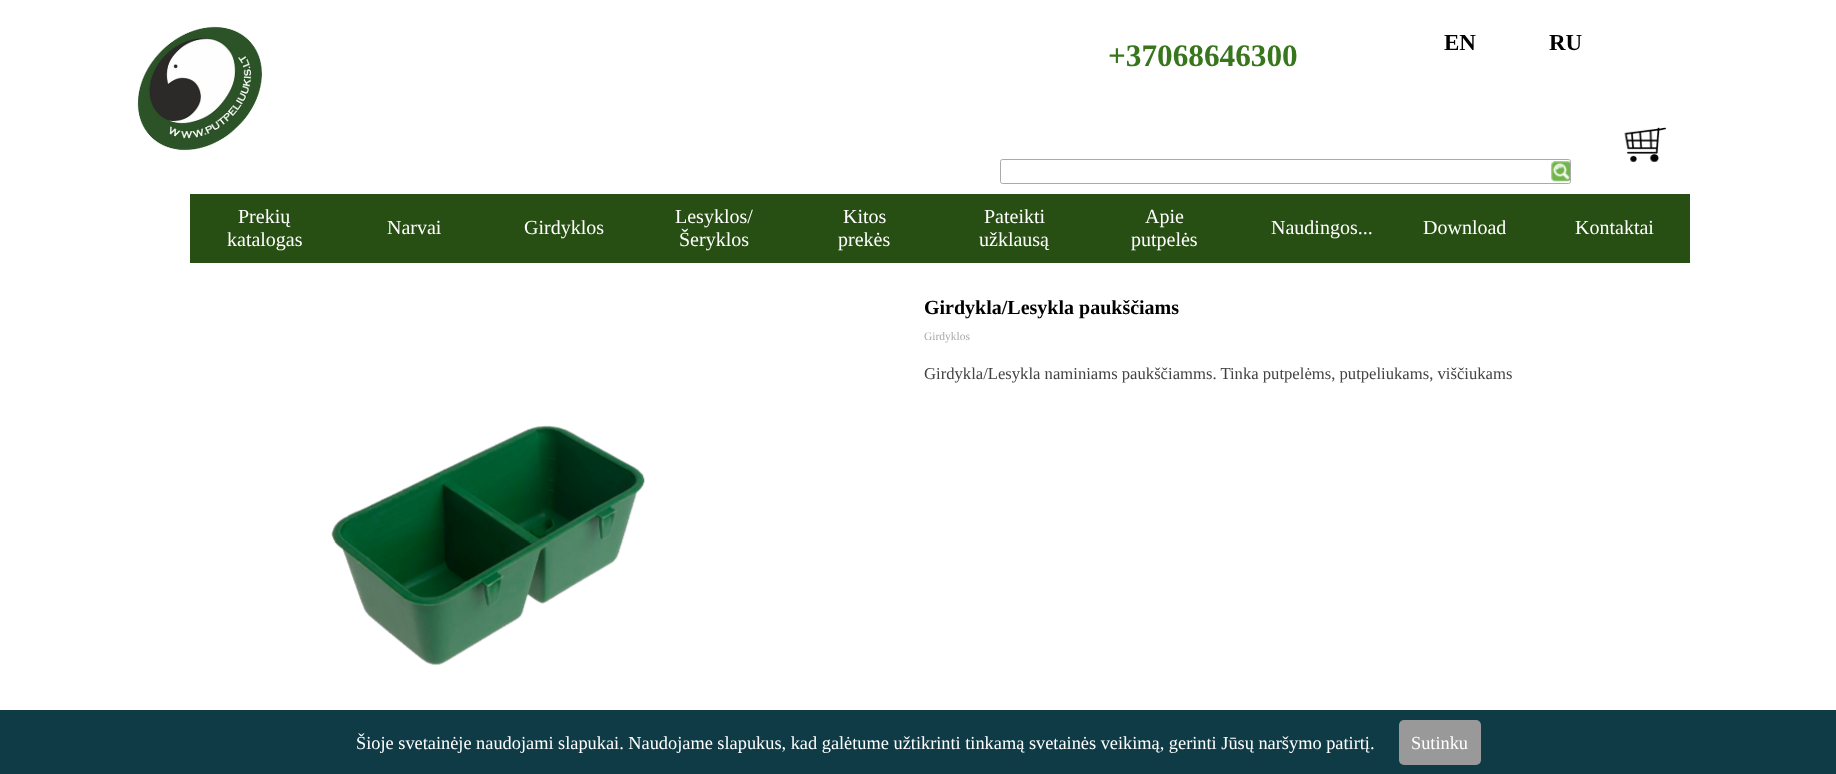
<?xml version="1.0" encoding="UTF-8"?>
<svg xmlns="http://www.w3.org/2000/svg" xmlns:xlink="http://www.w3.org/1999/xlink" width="1836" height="774">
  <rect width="100%" height="100%" fill="#ffffff" />
  <image x="137" y="26" width="125" height="125" xlink:href="image1.png" />
  <image x="1624" y="127" width="43" height="36" xlink:href="image2.png" />
  <image x="1551" y="161" width="20" height="21" xlink:href="image3.png" />
  <rect x="1000.5" y="159.5" width="570" height="24" rx="2" fill="none" stroke="#a9a9a9" />
  <rect x="190" y="194" width="1500" height="69" fill="#274e13" />
  <image x="331" y="425" width="314" height="240" xlink:href="image4.png" />
  <rect y="710" width="1836" height="64" fill="#0f3b46" />
  <rect x="1399" y="720" width="82" height="45" rx="5" fill="#999999" />
  <text x="1444" y="50" style="font-family: Liberation Serif; font-size: 23px; font-weight: bold; fill: #000000">EN</text>
  <text x="1549" y="50" style="font-family: Liberation Serif; font-size: 23px; font-weight: bold; fill: #000000">RU</text>
  <text x="1108" y="66" style="font-family: Liberation Serif; font-size: 31.25px; font-weight: bold; fill: #38761d">+37068646300</text>
  <text x="238" y="223" style="font-family: Liberation Serif; font-size: 20px; fill: #ffffff">Prekių</text>
  <text x="227" y="246" style="font-family: Liberation Serif; font-size: 20px; fill: #ffffff">katalogas</text>
  <text x="387" y="234" style="font-family: Liberation Serif; font-size: 20px; fill: #ffffff">Narvai</text>
  <text x="524" y="234" style="font-family: Liberation Serif; font-size: 20px; fill: #ffffff">Girdyklos</text>
  <text x="675" y="223" style="font-family: Liberation Serif; font-size: 20px; fill: #ffffff">Lesyklos/</text>
  <text x="679" y="246" style="font-family: Liberation Serif; font-size: 20px; fill: #ffffff">Šeryklos</text>
  <text x="843" y="223" style="font-family: Liberation Serif; font-size: 20px; fill: #ffffff">Kitos</text>
  <text x="838" y="246" style="font-family: Liberation Serif; font-size: 20px; fill: #ffffff">prekės</text>
  <text x="984" y="223" style="font-family: Liberation Serif; font-size: 20px; fill: #ffffff">Pateikti</text>
  <text x="979" y="246" style="font-family: Liberation Serif; font-size: 20px; fill: #ffffff">užklausą</text>
  <text x="1145" y="223" style="font-family: Liberation Serif; font-size: 20px; fill: #ffffff">Apie</text>
  <text x="1131" y="246" style="font-family: Liberation Serif; font-size: 20px; fill: #ffffff">putpelės</text>
  <text x="1271" y="234" style="font-family: Liberation Serif; font-size: 20px; fill: #ffffff">Naudingos...</text>
  <text x="1423" y="234" style="font-family: Liberation Serif; font-size: 20px; fill: #ffffff">Download</text>
  <text x="1575" y="234" style="font-family: Liberation Serif; font-size: 20px; fill: #ffffff">Kontaktai</text>
  <text x="924" y="314" style="font-family: Liberation Serif; font-size: 20px; font-weight: bold; fill: #000000">Girdykla/Lesykla paukščiams</text>
  <text x="924" y="340" style="font-family: Liberation Serif; font-size: 11.5px; fill: #a9a9a9">Girdyklos</text>
  <text x="924" y="379" style="font-family: Liberation Serif; font-size: 16.65px; fill: #434343">Girdykla/Lesykla naminiams paukščiamms. Tinka putpelėms, putpeliukams, viščiukams</text>
  <text x="356" y="749" style="font-family: Liberation Serif; font-size: 18.33px; fill: #ffffff">Šioje svetainėje naudojami slapukai. Naudojame slapukus, kad galėtume užtikrinti tinkamą svetainės veikimą, gerinti Jūsų naršymo patirtį.</text>
  <text x="1411" y="749" style="font-family: Liberation Serif; font-size: 18.33px; fill: #ffffff">Sutinku</text>
</svg>
